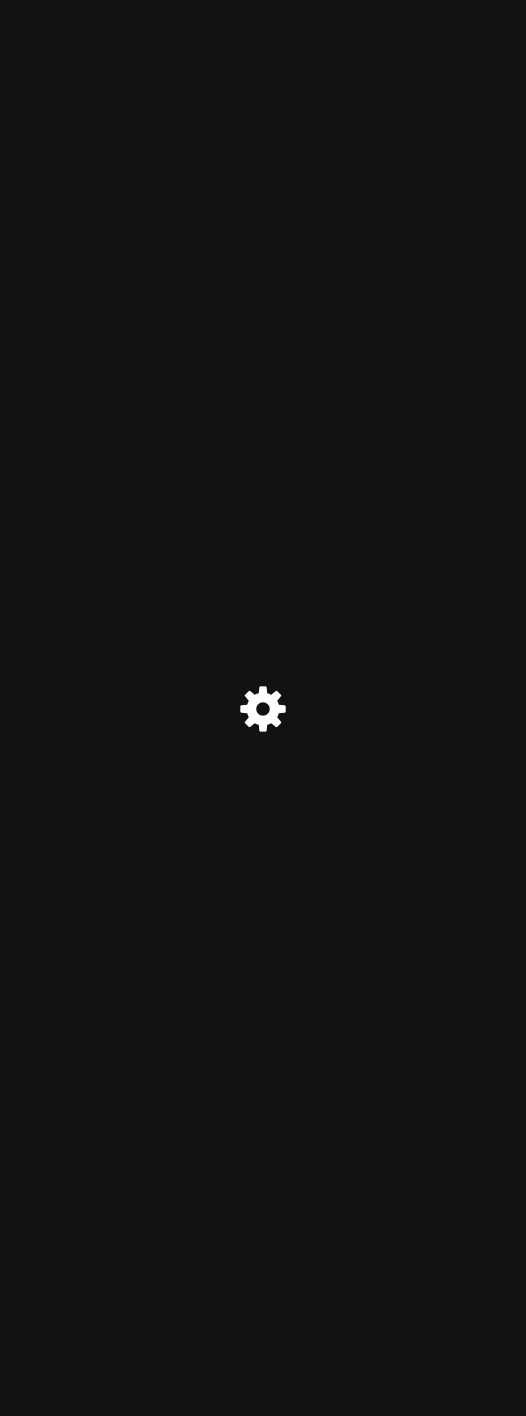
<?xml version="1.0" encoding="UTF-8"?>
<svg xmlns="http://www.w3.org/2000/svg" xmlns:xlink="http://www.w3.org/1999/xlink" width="526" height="1416">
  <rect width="100%" height="100%" fill="#111111" />
  <image x="240" y="686" width="46" height="46" xlink:href="image1.png" />
</svg>
